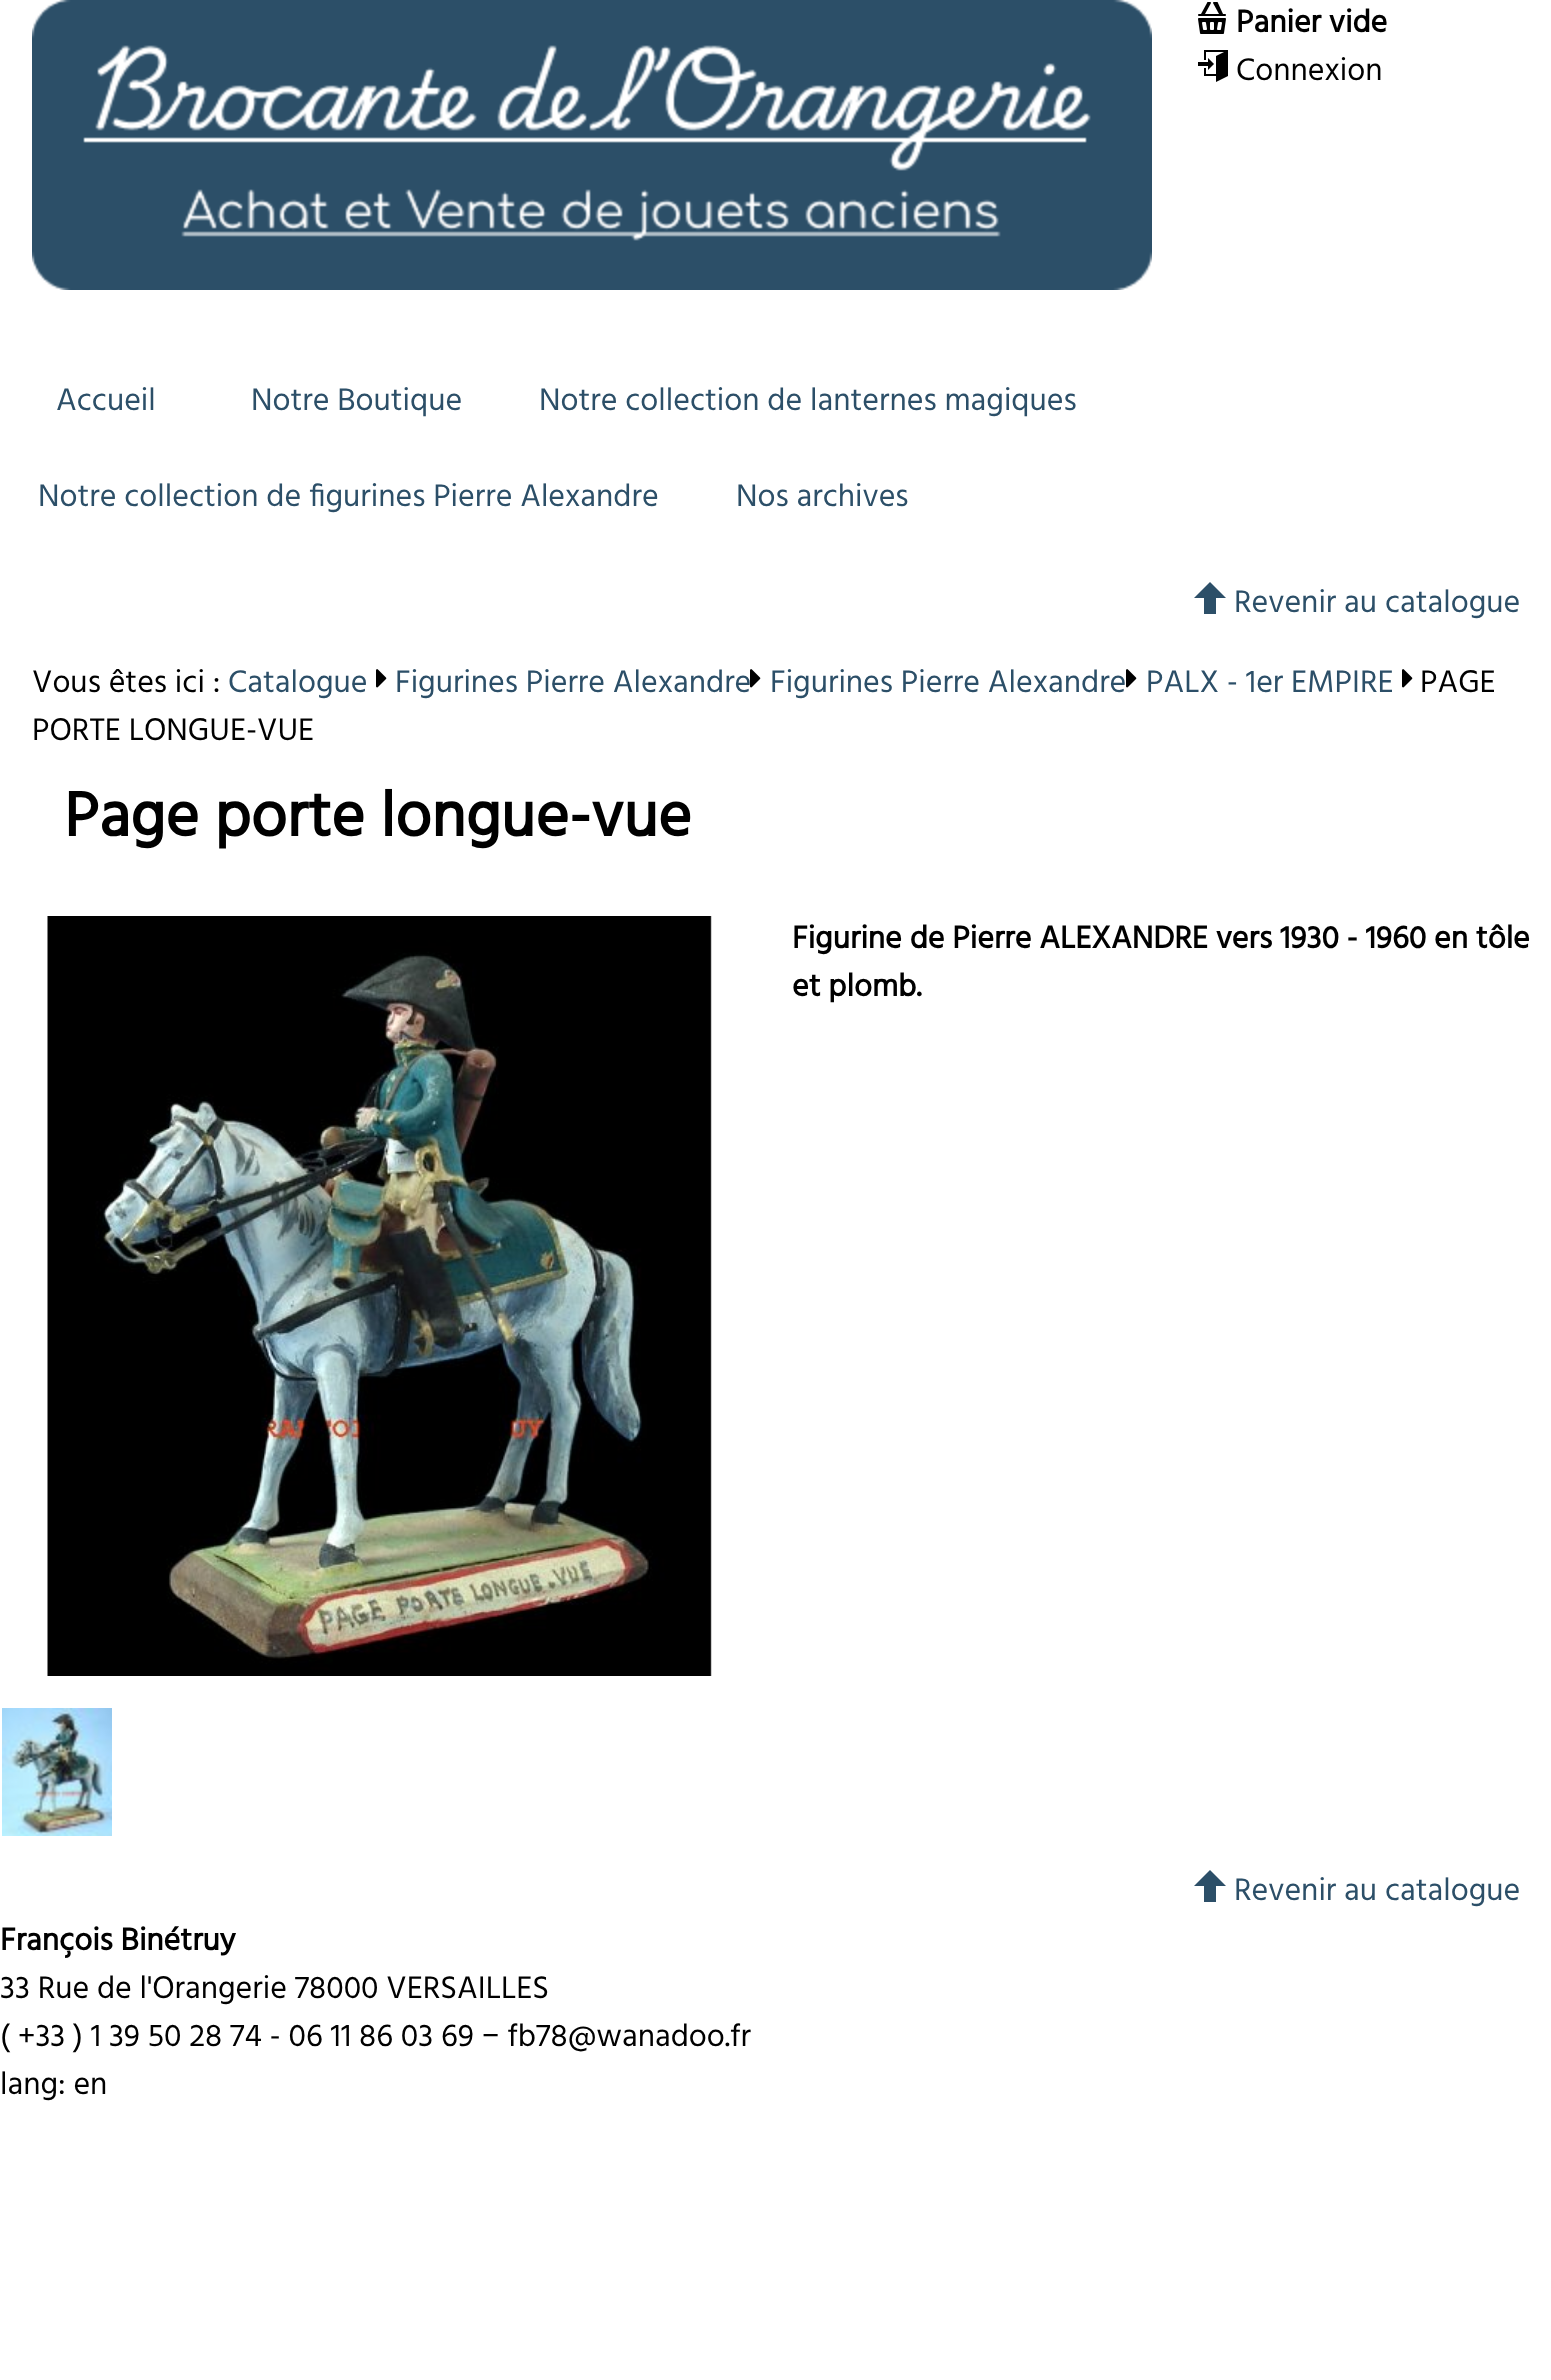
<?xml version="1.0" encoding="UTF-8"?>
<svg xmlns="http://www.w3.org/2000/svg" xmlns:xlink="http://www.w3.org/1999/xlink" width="1551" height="2380">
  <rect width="100%" height="100%" fill="#ffffff" />
  <image x="32" y="0" width="1120" height="290" xlink:href="image1.png" />
  <image x="1198" y="2" width="28" height="32" xlink:href="image2.png" />
  <image x="1198" y="50" width="30" height="32" xlink:href="image3.png" />
  <path d="M 1210 582 l -16 16 h 10 v 16 h 12 v -16 h 10 z" fill="#2c4f68" />
  <image x="376" y="669" width="11" height="19" xlink:href="image4.png" />
  <image x="750" y="669" width="11" height="19" xlink:href="image4.png" />
  <image x="1126" y="669" width="11" height="19" xlink:href="image4.png" />
  <image x="1402" y="669" width="11" height="19" xlink:href="image4.png" />
  <image x="47" y="916" width="665" height="760" xlink:href="image5.png" />
  <image x="2" y="1708" width="110" height="128" xlink:href="image6.png" />
  <path d="M 1210 1870 l -16 16 h 10 v 16 h 12 v -16 h 10 z" fill="#2c4f68" />
  <text x="1236" y="32" style="font-family: Hind; font-size: 32px; font-weight: bold; fill: #000000">Panier vide</text>
  <text x="1236" y="80" style="font-family: Hind; font-size: 32px; fill: #000000">Connexion</text>
  <text x="56" y="410" style="font-family: Hind; font-size: 32px; fill: #2c4f68">Accueil</text>
  <text x="251" y="410" style="font-family: Hind; font-size: 32px; fill: #2c4f68">Notre Boutique</text>
  <text x="539" y="410" style="font-family: Hind; font-size: 32px; fill: #2c4f68">Notre collection de lanternes magiques</text>
  <text x="38" y="506" style="font-family: Hind; font-size: 32px; fill: #2c4f68">Notre collection de figurines Pierre Alexandre</text>
  <text x="736" y="506" style="font-family: Hind; font-size: 32px; fill: #2c4f68">Nos archives</text>
  <text x="1234" y="612" style="font-family: Hind; font-size: 32px; fill: #2c4f68">Revenir au catalogue</text>
  <text x="32" y="692" style="font-family: Hind; font-size: 32px; fill: #000000">Vous êtes ici :</text>
  <text x="228" y="692" style="font-family: Hind; font-size: 32px; fill: #2c4f68">Catalogue</text>
  <text x="395" y="692" style="font-family: Hind; font-size: 32px; fill: #2c4f68">Figurines Pierre Alexandre</text>
  <text x="770" y="692" style="font-family: Hind; font-size: 32px; fill: #2c4f68">Figurines Pierre Alexandre</text>
  <text x="1146" y="692" style="font-family: Hind; font-size: 32px; fill: #2c4f68">PALX - 1er EMPIRE</text>
  <text x="1420" y="692" style="font-family: Hind; font-size: 32px; fill: #000000">PAGE</text>
  <text x="32" y="740" style="font-family: Hind; font-size: 32px; fill: #000000">PORTE LONGUE-VUE</text>
  <text x="64" y="836" style="font-family: Hind; font-size: 64px; font-weight: bold; fill: #000000">Page porte longue-vue</text>
  <text x="792" y="948" style="font-family: Hind; font-size: 32px; font-weight: bold; fill: #000000">Figurine de Pierre ALEXANDRE vers 1930 - 1960 en tôle</text>
  <text x="792" y="996" style="font-family: Hind; font-size: 32px; font-weight: bold; fill: #000000">et plomb.</text>
  <text x="1234" y="1900" style="font-family: Hind; font-size: 32px; fill: #2c4f68">Revenir au catalogue</text>
  <text x="0" y="1950" style="font-family: Hind; font-size: 32px; font-weight: bold; fill: #000000">François Binétruy</text>
  <text x="0" y="1998" style="font-family: Hind; font-size: 32px; fill: #000000">33 Rue de l'Orangerie 78000 VERSAILLES</text>
  <text x="0" y="2046" style="font-family: Hind; font-size: 32px; fill: #000000">( +33 ) 1 39 50 28 74 - 06 11 86 03 69 − fb78@wanadoo.fr</text>
  <text x="0" y="2094" style="font-family: Hind; font-size: 32px; fill: #000000">lang: en</text>
</svg>
